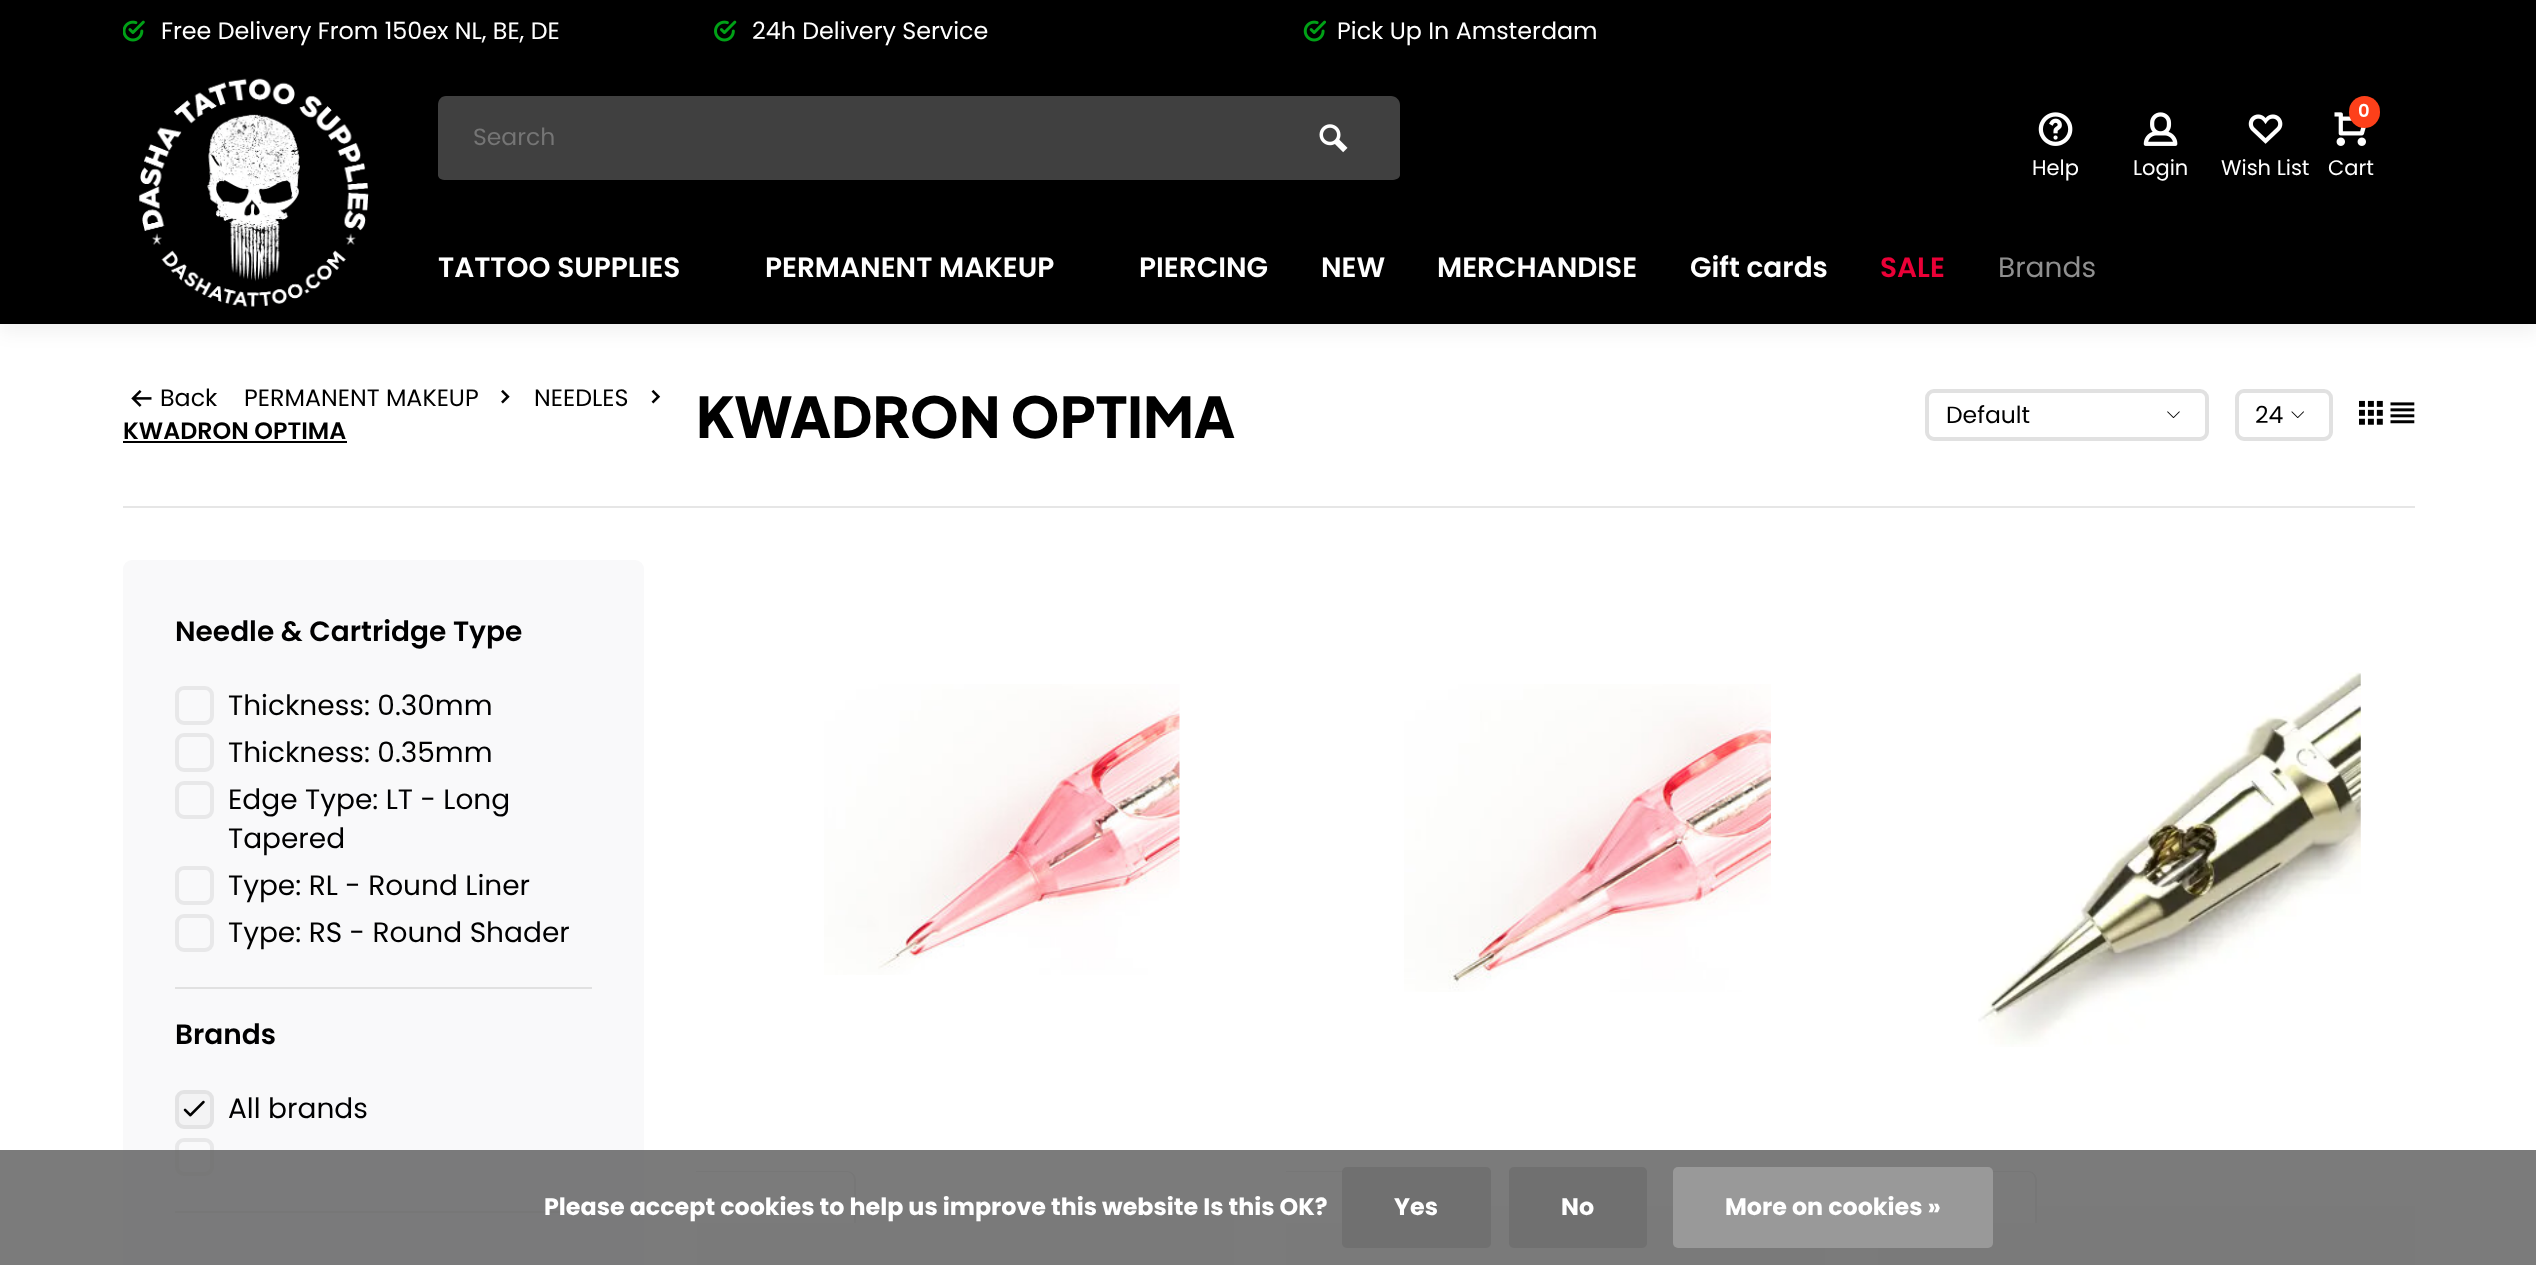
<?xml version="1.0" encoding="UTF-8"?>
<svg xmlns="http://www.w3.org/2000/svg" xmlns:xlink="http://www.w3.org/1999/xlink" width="2536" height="1265">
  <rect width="100%" height="100%" fill="#ffffff" />
  <rect y="70" width="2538" height="263" fill="#000000" fill-opacity="0.05" filter="blur(9px)" />
  <rect width="2536" height="324" fill="#000000" />
  <image x="123" y="20" width="22" height="22" xlink:href="image1.png" />
  <image x="714" y="20" width="23" height="22" xlink:href="image2.png" />
  <image x="1303" y="20" width="23" height="22" xlink:href="image3.png" />
  <image x="139" y="78" width="230" height="229" xlink:href="image4.png" />
  <path d="M 446 96 h 821 v 84 h -821 c -5 0 -8 -2 -8 -5 v -70 c 0 -5 3 -9 8 -9 z" fill="#404040" />
  <path d="M 1267 96 h 124 c 5 0 9 4 9 9 v 70 c 0 3 -4 5 -9 5 h -124 z" fill="#404040" />
  <image x="1319" y="124" width="29" height="29" xlink:href="image5.png" />
  <image x="2038" y="112" width="35" height="34" xlink:href="image6.png" />
  <image x="2143" y="112" width="35" height="34" xlink:href="image7.png" />
  <image x="2248" y="114" width="35" height="30" xlink:href="image8.png" />
  <image x="2334" y="112" width="32" height="34" xlink:href="image9.png" />
  <rect x="2349" y="96" width="31" height="32" rx="15.5" fill="#fd401a" />
  <rect x="123" y="506" width="2292" height="2" fill="#e6e6e6" />
  <image x="131" y="390" width="21" height="17" xlink:href="image10.png" />
  <image x="501" y="389" width="9" height="15" xlink:href="image11.png" />
  <image x="651" y="389" width="10" height="15" xlink:href="image12.png" />
  <rect x="123" y="441" width="224" height="2" fill="#000000" />
  <image x="2167" y="411" width="13" height="7" xlink:href="image13.png" />
  <rect x="1927" y="391" width="280" height="48" rx="7" fill="none" stroke="#e1e1e1" stroke-width="4" />
  <image x="2291" y="411" width="13" height="7" xlink:href="image14.png" />
  <rect x="2237" y="391" width="94" height="48" rx="7" fill="none" stroke="#e1e1e1" stroke-width="4" />
  <image x="2359" y="400" width="24" height="25" xlink:href="image15.png" />
  <image x="2390" y="402" width="25" height="22" xlink:href="image16.png" />
  <rect x="123" y="560" width="521" height="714" rx="9" fill="#f9f9fa" />
  <rect x="175" y="987" width="417" height="2" fill="#e1e1e1" />
  <rect x="177" y="688" width="35" height="35" rx="7" fill="none" stroke="#e8e8e9" stroke-width="4" />
  <rect x="177" y="735" width="35" height="35" rx="7" fill="none" stroke="#e8e8e9" stroke-width="4" />
  <rect x="177" y="783" width="35" height="34" rx="7" fill="none" stroke="#e8e8e9" stroke-width="4" />
  <rect x="177" y="868" width="35" height="35" rx="7" fill="none" stroke="#e8e8e9" stroke-width="4" />
  <rect x="177" y="916" width="35" height="34" rx="7" fill="none" stroke="#e8e8e9" stroke-width="4" />
  <rect x="175" y="1211" width="417" height="2" fill="#e1e1e1" />
  <rect x="177" y="1092" width="35" height="35" rx="7" fill="#f3f3f4" stroke="#e3e3e4" stroke-width="4" />
  <image x="183" y="1100" width="22" height="17" xlink:href="image17.png" />
  <rect x="177" y="1140" width="35" height="34" rx="7" fill="none" stroke="#e8e8e9" stroke-width="4" />
  <image x="824" y="684" width="356" height="291" xlink:href="image18.png" />
  <rect x="697" y="1206" width="537" height="59" fill="#f7f7f9" />
  <path d="M 697 1173 h 150 c 4 0 7 3 7 7 v 43 h -157 z" fill="#ffffff" />
  <path d="M 696 1171 h 151 c 5 0 9 4 9 9 v 43 h -160 z m 0 1 h 151 c 4 0 7 4 7 8 v 43 h -158 z" fill="#e1e1e1" fill-rule="evenodd" />
  <image x="1404" y="684" width="367" height="308" xlink:href="image19.png" />
  <rect x="1286" y="1206" width="539" height="59" fill="#f7f7f9" />
  <rect x="1286" y="1206" width="56" height="17" fill="#ffffff" />
  <path d="M 1286 1171 h 151 c 5 0 9 4 9 9 v 43 h -160 z m 0 1 h 151 c 4 0 7 4 7 8 v 43 h -158 z" fill="#e1e1e1" fill-rule="evenodd" />
  <image x="1978" y="672" width="383" height="375" xlink:href="image20.png" />
  <rect x="1878" y="1206" width="537" height="59" fill="#f7f7f9" />
  <path d="M 1878 1173 h 150 c 4 0 7 3 7 7 v 43 h -157 z" fill="#ffffff" />
  <path d="M 1878 1171 h 150 c 5 0 9 4 9 9 v 43 h -159 z m 0 1 h 150 c 4 0 7 4 7 8 v 43 h -157 z" fill="#e1e1e1" fill-rule="evenodd" />
  <rect y="1150" width="2536" height="115" fill="#646464" fill-opacity="0.85" />
  <rect x="1342" y="1167" width="149" height="81" rx="5" fill="#707070" />
  <rect x="1509" y="1167" width="138" height="81" rx="5" fill="#707070" />
  <rect x="1673" y="1167" width="320" height="81" rx="5" fill="#999999" />
  <text x="161" y="39" style="font-family: Poppins; font-size: 23.8px; fill: #ffffff">Free Delivery From 150ex NL, BE, DE</text>
  <text x="752" y="39" style="font-family: Poppins; font-size: 23.8px; fill: #ffffff">24h Delivery Service</text>
  <text x="1337" y="39" style="font-family: Poppins; font-size: 23.8px; fill: #ffffff">Pick Up In Amsterdam</text>
  <text x="473" y="145" style="font-family: Poppins; font-size: 23.5px; fill: #757575">Search</text>
  <text x="2032" y="175" style="font-family: Poppins; font-size: 21px; fill: #ffffff">Help</text>
  <text x="2133" y="175" style="font-family: Poppins; font-size: 21px; fill: #ffffff">Login</text>
  <text x="2221" y="175" style="font-family: Poppins; font-size: 21px; fill: #ffffff">Wish List</text>
  <text x="2358" y="117" style="font-family: Poppins; font-size: 18px; font-weight: 600; fill: #ffffff">0</text>
  <text x="2328" y="175" style="font-family: Poppins; font-size: 21px; fill: #ffffff">Cart</text>
  <text x="438" y="277" style="font-family: Poppins; font-size: 28px; font-weight: 600; fill: #ffffff">TATTOO SUPPLIES</text>
  <text x="765" y="277" style="font-family: Poppins; font-size: 28px; font-weight: 600; fill: #ffffff">PERMANENT MAKEUP</text>
  <text x="1139" y="277" style="font-family: Poppins; font-size: 28px; font-weight: 600; fill: #ffffff">PIERCING</text>
  <text x="1321" y="277" style="font-family: Poppins; font-size: 28px; font-weight: 600; fill: #ffffff">NEW</text>
  <text x="1437" y="277" style="font-family: Poppins; font-size: 28px; font-weight: 600; fill: #ffffff">MERCHANDISE</text>
  <text x="1690" y="277" style="font-family: Poppins; font-size: 28px; font-weight: 600; fill: #ffffff">Gift cards</text>
  <text x="1880" y="277" style="font-family: Poppins; font-size: 28px; font-weight: 600; fill: #eb0037">SALE</text>
  <text x="1998" y="277" style="font-family: Poppins; font-size: 28px; fill: #8f8f8f">Brands</text>
  <text x="160" y="406" style="font-family: Poppins; font-size: 23.8px; fill: #000000">Back</text>
  <text x="244" y="406" style="font-family: Poppins; font-size: 23.8px; fill: #000000">PERMANENT MAKEUP</text>
  <text x="534" y="406" style="font-family: Poppins; font-size: 23.8px; fill: #000000">NEEDLES</text>
  <text x="123" y="439" style="font-family: Poppins; font-size: 23.8px; font-weight: 600; fill: #000000">KWADRON OPTIMA</text>
  <text x="696" y="438" style="font-family: Plus Jakarta Sans; font-size: 56px; font-weight: 800; fill: #000000">KWADRON OPTIMA</text>
  <text x="1946" y="423" style="font-family: Poppins; font-size: 23.5px; fill: #000000">Default</text>
  <text x="2255" y="423" style="font-family: Poppins; font-size: 23.5px; fill: #000000">24</text>
  <text x="175" y="641" style="font-family: Poppins; font-size: 28px; font-weight: 600; fill: #000000">Needle &amp; Cartridge Type</text>
  <text x="228" y="715" style="font-family: Poppins; font-size: 28px; fill: #000000">Thickness: 0.30mm</text>
  <text x="228" y="762" style="font-family: Poppins; font-size: 28px; fill: #000000">Thickness: 0.35mm</text>
  <text x="228" y="809" style="font-family: Poppins; font-size: 28px; fill: #000000">Edge Type: LT - Long</text>
  <text x="228" y="848" style="font-family: Poppins; font-size: 28px; fill: #000000">Tapered</text>
  <text x="228" y="895" style="font-family: Poppins; font-size: 28px; fill: #000000">Type: RL - Round Liner</text>
  <text x="228" y="942" style="font-family: Poppins; font-size: 28px; fill: #000000">Type: RS - Round Shader</text>
  <text x="175" y="1044" style="font-family: Poppins; font-size: 28px; font-weight: 600; fill: #000000">Brands</text>
  <text x="228" y="1118" style="font-family: Poppins; font-size: 28px; fill: #000000">All brands</text>
  <text x="544" y="1215" style="font-family: Poppins; font-size: 23.8px; font-weight: bold; fill: #ffffff">Please accept cookies to help us improve this website Is this OK?</text>
  <text x="1394" y="1215" style="font-family: Poppins; font-size: 23.8px; font-weight: bold; fill: #ffffff">Yes</text>
  <text x="1561" y="1215" style="font-family: Poppins; font-size: 23.8px; font-weight: bold; fill: #ffffff">No</text>
  <text x="1725" y="1215" style="font-family: Poppins; font-size: 23.8px; font-weight: bold; fill: #ffffff">More on cookies »</text>
</svg>
